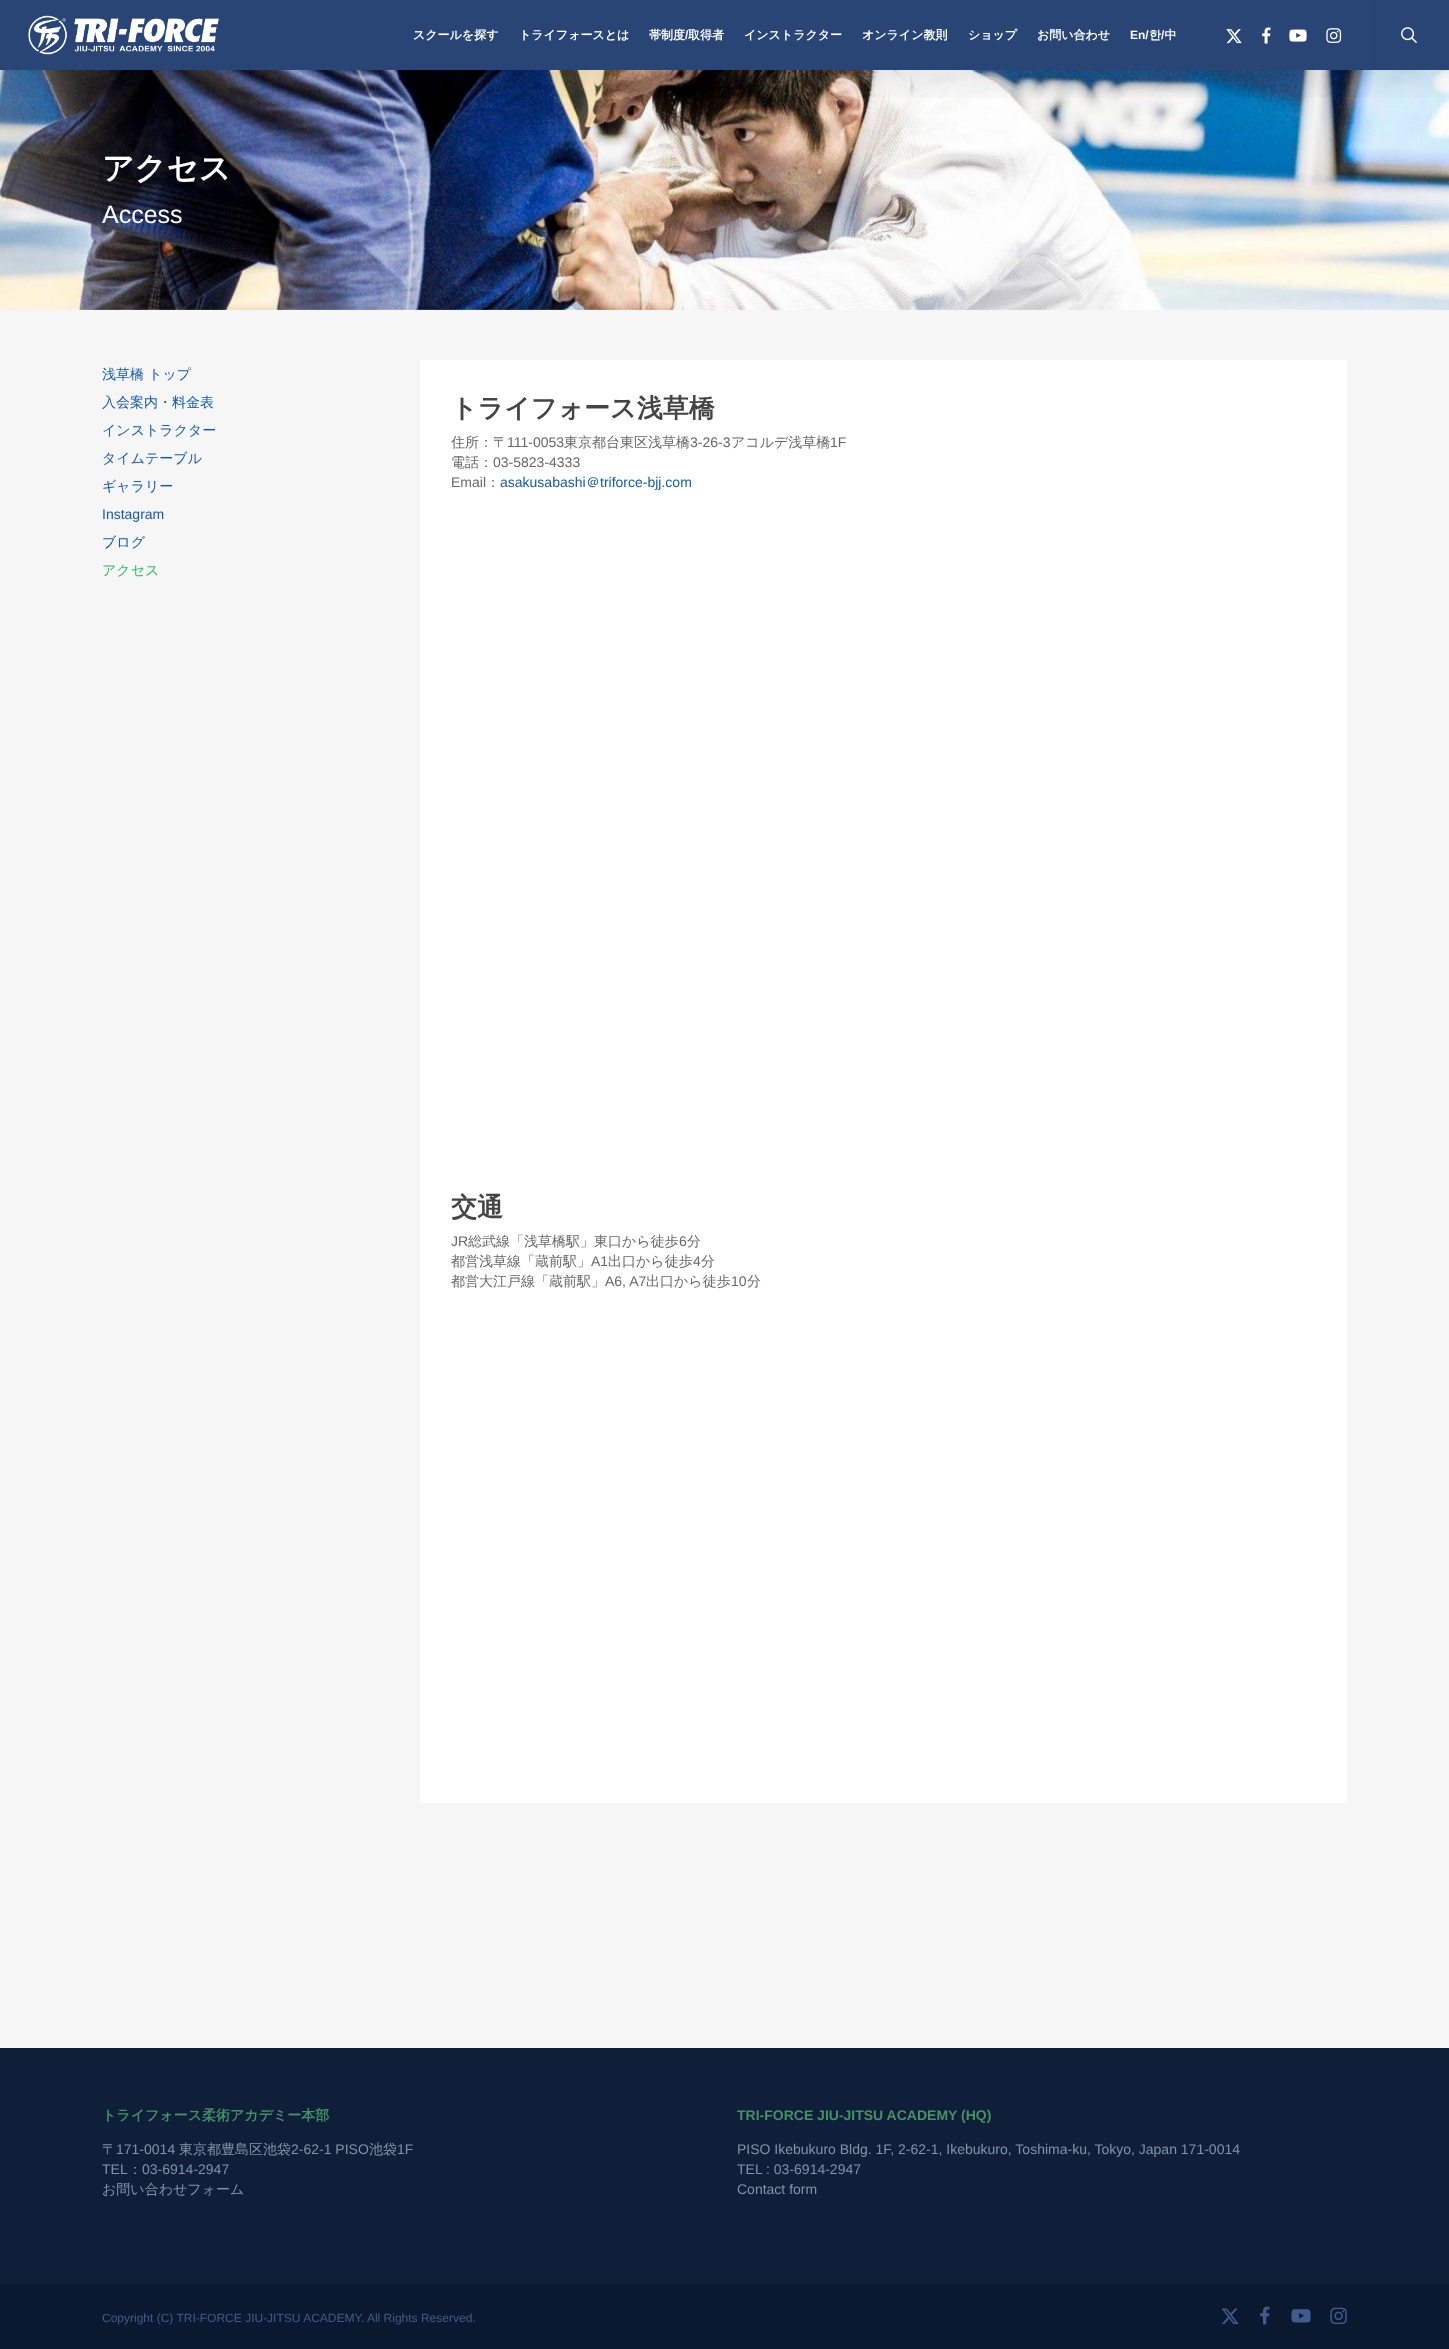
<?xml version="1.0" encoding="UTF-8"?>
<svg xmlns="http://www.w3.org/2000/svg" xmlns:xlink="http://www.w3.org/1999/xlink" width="1449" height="2349">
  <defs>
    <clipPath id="clip1"><rect x="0" y="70" width="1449" height="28" /></clipPath>
  </defs>
  <rect width="100%" height="100%" fill="#ffffff" />
  <rect width="1449" height="70" fill="#284575" />
  <image x="0" y="70" width="1449" height="240" xlink:href="image7.png" />
  <g clip-path="url(#clip1)">
    <rect y="3" width="1449" height="70" fill="#000000" fill-opacity="0.15" filter="blur(22.5px)" />
  </g>
  <image x="28" y="15" width="191" height="40" xlink:href="image1.png" />
  <image x="1226" y="29" width="16" height="15" xlink:href="image2.png" />
  <image x="1262" y="27" width="9" height="17" xlink:href="image3.png" />
  <image x="1289" y="29" width="18" height="13" xlink:href="image4.png" />
  <image x="1326" y="28" width="16" height="15" xlink:href="image5.png" />
  <rect x="1374" width="1" height="70" fill="#25406d" />
  <image x="1401" y="27" width="16" height="16" xlink:href="image6.png" />
  <rect y="310" width="1449" height="1738" fill="#f6f6f6" />
  <rect x="420" y="360" width="927" height="1443" fill="#ffffff" />
  <rect y="2048" width="1449" height="236" fill="#0f1f39" />
  <rect y="2284" width="1449" height="65" fill="#0b1930" />
  <image x="1221" y="2308" width="18" height="17" xlink:href="image8.png" />
  <image x="1260" y="2306" width="10" height="19" xlink:href="image9.png" />
  <image x="1291" y="2309" width="20" height="14" xlink:href="image10.png" />
  <image x="1330" y="2307" width="17" height="18" xlink:href="image11.png" />
  <text x="413" y="39" style="font-family: WenQuanYi Zen Hei; font-size: 12px; font-weight: bold; fill: #ffffff">スクールを探す</text>
  <text x="519" y="39" style="font-family: WenQuanYi Zen Hei; font-size: 12px; font-weight: bold; fill: #ffffff">トライフォースとは</text>
  <text x="649" y="39" style="font-family: WenQuanYi Zen Hei; font-size: 12px; font-weight: bold; fill: #ffffff">帯制度</text>
  <text x="685" y="39" style="font-family: Liberation Sans; font-size: 12px; font-weight: bold; fill: #ffffff">/</text>
  <text x="688" y="39" style="font-family: WenQuanYi Zen Hei; font-size: 12px; font-weight: bold; fill: #ffffff">取得者</text>
  <text x="744" y="39" style="font-family: WenQuanYi Zen Hei; font-size: 12px; font-weight: bold; fill: #ffffff">インストラクター</text>
  <text x="862" y="39" style="font-family: WenQuanYi Zen Hei; font-size: 12px; font-weight: bold; fill: #ffffff">オンライン教則</text>
  <text x="968" y="39" style="font-family: WenQuanYi Zen Hei; font-size: 12px; font-weight: bold; fill: #ffffff">ショップ</text>
  <text x="1037" y="39" style="font-family: WenQuanYi Zen Hei; font-size: 12px; font-weight: bold; fill: #ffffff">お問い合わせ</text>
  <text x="1130" y="39" style="font-family: Liberation Sans; font-size: 12px; font-weight: bold; fill: #ffffff">En/</text>
  <text x="1149" y="39" style="font-family: WenQuanYi Zen Hei; font-size: 12px; font-weight: bold; fill: #ffffff">한 中</text>
  <text x="1161" y="39" style="font-family: Liberation Sans; font-size: 12px; font-weight: bold; fill: #ffffff">/</text>
  <text x="102" y="179" style="font-family: WenQuanYi Zen Hei; font-size: 31.5px; font-weight: bold; fill: #ffffff">アクセス</text>
  <text x="102" y="223" style="font-family: Liberation Sans; font-size: 25px; fill: #ffffff">Access</text>
  <text x="102" y="379" style="font-family: WenQuanYi Zen Hei; font-size: 14px; font-weight: 500; fill: #165baa">浅草橋 トップ</text>
  <text x="102" y="407" style="font-family: WenQuanYi Zen Hei; font-size: 14px; font-weight: 500; fill: #165baa">入会案内・料金表</text>
  <text x="102" y="435" style="font-family: WenQuanYi Zen Hei; font-size: 14px; font-weight: 500; fill: #165baa">インストラクター</text>
  <text x="102" y="463" style="font-family: WenQuanYi Zen Hei; font-size: 14px; font-weight: 500; fill: #165baa">タイムテーブル</text>
  <text x="102" y="491" style="font-family: WenQuanYi Zen Hei; font-size: 14px; font-weight: 500; fill: #165baa">ギャラリー</text>
  <text x="102" y="519" style="font-family: Liberation Sans; font-size: 14px; fill: #165baa">Instagram</text>
  <text x="102" y="547" style="font-family: WenQuanYi Zen Hei; font-size: 14px; font-weight: 500; fill: #165baa">ブログ</text>
  <text x="102" y="575" style="font-family: WenQuanYi Zen Hei; font-size: 14px; font-weight: 500; fill: #2bbc65">アクセス</text>
  <text x="451" y="417" style="font-family: WenQuanYi Zen Hei; font-size: 26px; font-weight: bold; fill: #444444">トライフォース浅草橋</text>
  <text x="451" y="447" style="font-family: WenQuanYi Zen Hei; font-size: 14px; font-weight: 500; fill: #676767">住所：〒</text>
  <text x="507" y="447" style="font-family: Liberation Sans; font-size: 14px; fill: #676767">111-0053</text>
  <text x="564" y="447" style="font-family: WenQuanYi Zen Hei; font-size: 14px; font-weight: 500; fill: #676767">東京都台東区浅草橋</text>
  <text x="690" y="447" style="font-family: Liberation Sans; font-size: 14px; fill: #676767">3-26-3</text>
  <text x="731" y="447" style="font-family: WenQuanYi Zen Hei; font-size: 14px; font-weight: 500; fill: #676767">アコルデ浅草橋</text>
  <text x="830" y="447" style="font-family: Liberation Sans; font-size: 14px; fill: #676767">1F</text>
  <text x="451" y="467" style="font-family: WenQuanYi Zen Hei; font-size: 14px; font-weight: 500; fill: #676767">電話：</text>
  <text x="493" y="467" style="font-family: Liberation Sans; font-size: 14px; fill: #676767">03-5823-4333</text>
  <text x="451" y="487" style="font-family: Liberation Sans; font-size: 14px; fill: #676767">Email</text>
  <text x="486" y="487" style="font-family: WenQuanYi Zen Hei; font-size: 14px; font-weight: 500; fill: #676767">：</text>
  <text x="500" y="487" style="font-family: Liberation Sans; font-size: 14px; fill: #165baa">asakusabashi</text>
  <text x="586" y="487" style="font-family: WenQuanYi Zen Hei; font-size: 14px; font-weight: 500; fill: #165baa">＠</text>
  <text x="600" y="487" style="font-family: Liberation Sans; font-size: 14px; fill: #165baa">triforce-bjj.com</text>
  <text x="451" y="1216" style="font-family: WenQuanYi Zen Hei; font-size: 26px; font-weight: bold; fill: #444444">交通</text>
  <text x="451" y="1246" style="font-family: Liberation Sans; font-size: 14px; fill: #676767">JR</text>
  <text x="468" y="1246" style="font-family: WenQuanYi Zen Hei; font-size: 14px; font-weight: 500; fill: #676767">総武線「浅草橋駅」東口から徒歩</text>
  <text x="679" y="1246" style="font-family: Liberation Sans; font-size: 14px; fill: #676767">6</text>
  <text x="687" y="1246" style="font-family: WenQuanYi Zen Hei; font-size: 14px; font-weight: 500; fill: #676767">分</text>
  <text x="451" y="1266" style="font-family: WenQuanYi Zen Hei; font-size: 14px; font-weight: 500; fill: #676767">都営浅草線「蔵前駅」</text>
  <text x="591" y="1266" style="font-family: Liberation Sans; font-size: 14px; fill: #676767">A1</text>
  <text x="608" y="1266" style="font-family: WenQuanYi Zen Hei; font-size: 14px; font-weight: 500; fill: #676767">出口から徒歩</text>
  <text x="693" y="1266" style="font-family: Liberation Sans; font-size: 14px; fill: #676767">4</text>
  <text x="701" y="1266" style="font-family: WenQuanYi Zen Hei; font-size: 14px; font-weight: 500; fill: #676767">分</text>
  <text x="451" y="1286" style="font-family: WenQuanYi Zen Hei; font-size: 14px; font-weight: 500; fill: #676767">都営大江戸線「蔵前駅」</text>
  <text x="605" y="1286" style="font-family: Liberation Sans; font-size: 14px; fill: #676767">A6, A7</text>
  <text x="646" y="1286" style="font-family: WenQuanYi Zen Hei; font-size: 14px; font-weight: 500; fill: #676767">出口から徒歩</text>
  <text x="731" y="1286" style="font-family: Liberation Sans; font-size: 14px; fill: #676767">10</text>
  <text x="747" y="1286" style="font-family: WenQuanYi Zen Hei; font-size: 14px; font-weight: 500; fill: #676767">分</text>
  <text x="102" y="2120" style="font-family: WenQuanYi Zen Hei; font-size: 14px; font-weight: bold; fill: #449265">トライフォース柔術アカデミー本部</text>
  <text x="102" y="2154" style="font-family: WenQuanYi Zen Hei; font-size: 14px; font-weight: 500; fill: #7e96a8">〒</text>
  <text x="116" y="2154" style="font-family: Liberation Sans; font-size: 14px; fill: #7e96a8">171-0014</text>
  <text x="179" y="2154" style="font-family: WenQuanYi Zen Hei; font-size: 14px; font-weight: 500; fill: #7e96a8">東京都豊島区池袋</text>
  <text x="291" y="2154" style="font-family: Liberation Sans; font-size: 14px; fill: #7e96a8">2-62-1 PISO</text>
  <text x="369" y="2154" style="font-family: WenQuanYi Zen Hei; font-size: 14px; font-weight: 500; fill: #7e96a8">池袋</text>
  <text x="397" y="2154" style="font-family: Liberation Sans; font-size: 14px; fill: #7e96a8">1F</text>
  <text x="102" y="2174" style="font-family: Liberation Sans; font-size: 14px; fill: #7e96a8">TEL</text>
  <text x="128" y="2174" style="font-family: WenQuanYi Zen Hei; font-size: 14px; font-weight: 500; fill: #7e96a8">：</text>
  <text x="142" y="2174" style="font-family: Liberation Sans; font-size: 14px; fill: #7e96a8">03-6914-2947</text>
  <text x="102" y="2194" style="font-family: WenQuanYi Zen Hei; font-size: 14px; font-weight: 500; fill: #7e96a8">お問い合わせフォーム</text>
  <text x="737" y="2120" style="font-family: Liberation Sans; font-size: 14px; font-weight: bold; fill: #449265">TRI-FORCE JIU-JITSU ACADEMY (HQ)</text>
  <text x="737" y="2154" style="font-family: Liberation Sans; font-size: 14px; fill: #7e96a8">PISO Ikebukuro Bldg. 1F, 2-62-1, Ikebukuro, Toshima-ku, Tokyo, Japan 171-0014</text>
  <text x="737" y="2174" style="font-family: Liberation Sans; font-size: 14px; fill: #7e96a8">TEL : 03-6914-2947</text>
  <text x="737" y="2194" style="font-family: Liberation Sans; font-size: 14px; fill: #7e96a8">Contact form</text>
  <text x="102" y="2322" style="font-family: Liberation Sans; font-size: 12px; fill: #3f5c8c">Copyright (C) TRI-FORCE JIU-JITSU ACADEMY. All Rights Reserved.</text>
</svg>
